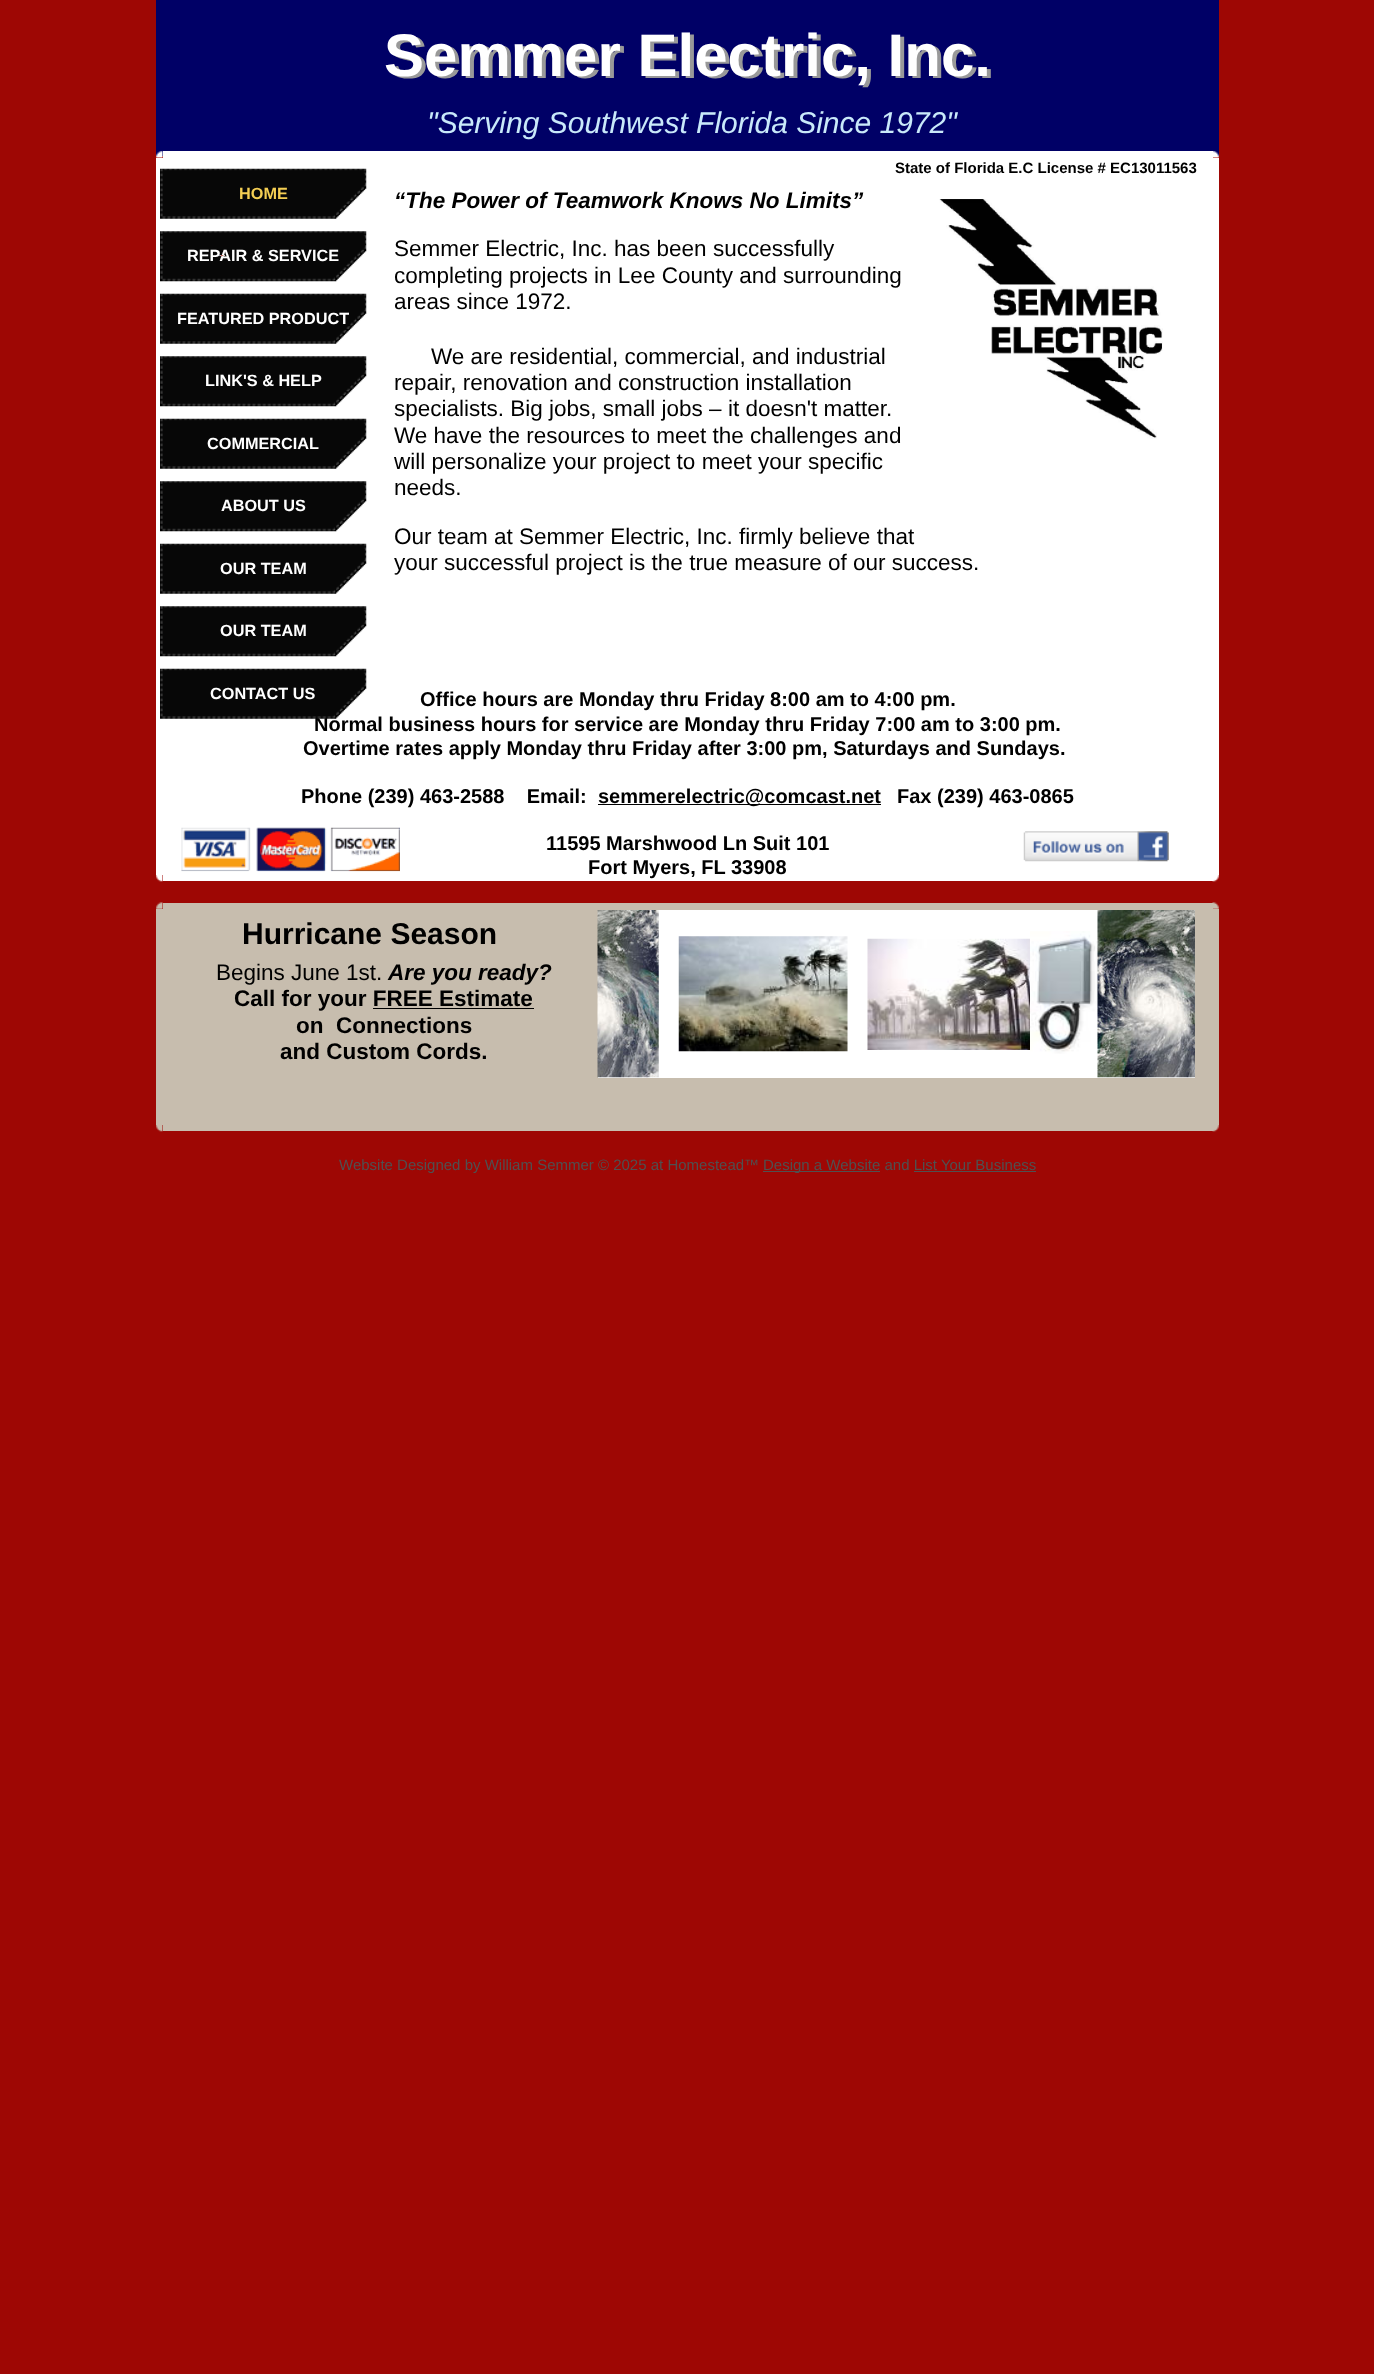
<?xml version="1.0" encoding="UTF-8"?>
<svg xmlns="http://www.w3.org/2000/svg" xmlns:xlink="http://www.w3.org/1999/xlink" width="1374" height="2374">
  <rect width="100%" height="100%" fill="#9e0704" />
  <rect x="156" width="1063" height="156" fill="#000066" />
  <image x="156" y="151" width="7" height="7" xlink:href="image1.png" />
  <rect x="156" y="158" width="1063" height="717" fill="#ffffff" />
  <image x="1212" y="875" width="7" height="7" xlink:href="image4.png" />
  <rect x="163" y="151" width="1050" height="730" fill="#ffffff" />
  <image x="1213" y="151" width="6" height="7" xlink:href="image2.png" />
  <image x="156" y="875" width="7" height="7" xlink:href="image3.png" />
  <image x="160" y="168" width="207" height="51" xlink:href="image5.png" />
  <image x="160" y="231" width="207" height="51" xlink:href="image6.png" />
  <image x="160" y="293" width="207" height="51" xlink:href="image7.png" />
  <image x="160" y="356" width="207" height="51" xlink:href="image6.png" />
  <image x="160" y="418" width="207" height="51" xlink:href="image5.png" />
  <image x="160" y="481" width="207" height="51" xlink:href="image6.png" />
  <image x="160" y="543" width="207" height="51" xlink:href="image5.png" />
  <image x="160" y="606" width="207" height="51" xlink:href="image6.png" />
  <image x="939" y="199" width="224" height="240" xlink:href="image9.png" />
  <image x="181" y="827" width="219" height="45" xlink:href="image11.png" />
  <rect x="598" y="804" width="283" height="1" fill="#000000" />
  <image x="1023" y="831" width="146" height="31" xlink:href="image12.png" />
  <image x="156" y="902" width="7" height="7" xlink:href="image13.png" />
  <image x="1212" y="902" width="7" height="7" xlink:href="image14.png" />
  <rect x="156" y="909" width="1063" height="216" fill="#c7bdae" />
  <image x="1212" y="1125" width="7" height="7" xlink:href="image16.png" />
  <rect x="163" y="903" width="1050" height="228" fill="#c7bdae" />
  <image x="156" y="1125" width="7" height="7" xlink:href="image15.png" />
  <rect x="598" y="910" width="597" height="168" fill="#ffffff" />
  <image x="597" y="910" width="62" height="168" xlink:href="image17.png" />
  <image x="678" y="936" width="170" height="116" xlink:href="image18.png" />
  <image x="867" y="938" width="163" height="112" xlink:href="image19.png" />
  <image x="1030" y="931" width="68" height="123" xlink:href="image20.png" />
  <image x="1097" y="910" width="98" height="168" xlink:href="image21.png" />
  <rect x="373" y="1008" width="161" height="1" fill="#000000" />
  <rect x="763" y="1171" width="117" height="1" fill="#505050" />
  <rect x="914" y="1171" width="122" height="1" fill="#505050" />
  <text x="388" y="78" style="font-family: Liberation Sans; font-size: 60px; font-weight: bold; fill: #999999">Semmer Electric, Inc.</text>
  <text x="384" y="76" style="font-family: Liberation Sans; font-size: 60px; font-weight: bold; fill: #ffffff">Semmer Electric, Inc.</text>
  <text x="427" y="133" style="font-family: Liberation Sans; font-size: 30px; font-style: italic; fill: #c9e9fa">"Serving Southwest Florida Since 1972"</text>
  <text x="895" y="173" style="font-family: Liberation Sans; font-size: 15px; font-weight: bold; fill: #000000">State of Florida E.C License # EC13011563</text>
  <text x="239" y="199" style="font-family: Liberation Sans; font-size: 16.25px; font-weight: bold; fill: #f4ce53">HOME</text>
  <text x="187" y="261" style="font-family: Liberation Sans; font-size: 16.25px; font-weight: bold; fill: #ffffff">REPAIR &amp; SERVICE</text>
  <text x="177" y="324" style="font-family: Liberation Sans; font-size: 16.25px; font-weight: bold; fill: #ffffff">FEATURED PRODUCT</text>
  <text x="205" y="386" style="font-family: Liberation Sans; font-size: 16.25px; font-weight: bold; fill: #ffffff">LINK'S &amp; HELP</text>
  <text x="207" y="449" style="font-family: Liberation Sans; font-size: 16.25px; font-weight: bold; fill: #ffffff">COMMERCIAL</text>
  <text x="221" y="511" style="font-family: Liberation Sans; font-size: 16.25px; font-weight: bold; fill: #ffffff">ABOUT US</text>
  <text x="220" y="574" style="font-family: Liberation Sans; font-size: 16.25px; font-weight: bold; fill: #ffffff">OUR TEAM</text>
  <text x="220" y="636" style="font-family: Liberation Sans; font-size: 16.25px; font-weight: bold; fill: #ffffff">OUR TEAM</text>
  <text x="394" y="208" style="font-family: Liberation Sans; font-size: 22.5px; font-weight: bold; font-style: italic; fill: #000000">“The Power of Teamwork Knows No Limits”</text>
  <text x="394" y="256" style="font-family: Liberation Sans; font-size: 22.5px; fill: #000000">Semmer Electric, Inc. has been successfully</text>
  <text x="394" y="283" style="font-family: Liberation Sans; font-size: 22.5px; fill: #000000">completing projects in Lee County and surrounding</text>
  <text x="394" y="309" style="font-family: Liberation Sans; font-size: 22.5px; fill: #000000">areas since 1972.</text>
  <text x="431" y="364" style="font-family: Liberation Sans; font-size: 22.5px; fill: #000000">We are residential, commercial, and industrial</text>
  <text x="394" y="390" style="font-family: Liberation Sans; font-size: 22.5px; fill: #000000">repair, renovation and construction installation</text>
  <text x="394" y="416" style="font-family: Liberation Sans; font-size: 22.5px; fill: #000000">specialists. Big jobs, small jobs – it doesn't matter.</text>
  <text x="394" y="443" style="font-family: Liberation Sans; font-size: 22.5px; fill: #000000">We have the resources to meet the challenges and</text>
  <text x="394" y="469" style="font-family: Liberation Sans; font-size: 22.5px; fill: #000000">will personalize your project to meet your specific</text>
  <text x="394" y="495" style="font-family: Liberation Sans; font-size: 22.5px; fill: #000000">needs.</text>
  <image x="218" y="255" width="7" height="2" xlink:href="image10.png" />
  <text x="394" y="544" style="font-family: Liberation Sans; font-size: 22.5px; fill: #000000">Our team at Semmer Electric, Inc. firmly believe that</text>
  <text x="394" y="570" style="font-family: Liberation Sans; font-size: 22.5px; fill: #000000">your successful project is the true measure of our success.</text>
  <text x="420" y="706" style="font-family: Liberation Sans; font-size: 20px; font-weight: bold; fill: #000000">Office hours are Monday thru Friday 8:00 am to 4:00 pm.</text>
  <text x="314" y="731" style="font-family: Liberation Sans; font-size: 20px; font-weight: bold; fill: #000000">Normal business hours for service are Monday thru Friday 7:00 am to 3:00 pm.</text>
  <image x="160" y="668" width="207" height="51" xlink:href="image8.png" />
  <text x="210" y="699" style="font-family: Liberation Sans; font-size: 16.25px; font-weight: bold; fill: #ffffff">CONTACT US</text>
  <text x="303" y="755" style="font-family: Liberation Sans; font-size: 20px; font-weight: bold; fill: #000000">Overtime rates apply Monday thru Friday after 3:00 pm, Saturdays and Sundays.</text>
  <text x="301" y="803" style="font-family: Liberation Sans; font-size: 20px; font-weight: bold; fill: #000000" xml:space="preserve">Phone (239) 463-2588    Email:</text>
  <text x="598" y="803" style="font-family: Liberation Sans; font-size: 20px; font-weight: bold; fill: #000000">semmerelectric@comcast.net</text>
  <text x="897" y="803" style="font-family: Liberation Sans; font-size: 20px; font-weight: bold; fill: #000000">Fax (239) 463-0865</text>
  <text x="546" y="850" style="font-family: Liberation Sans; font-size: 20px; font-weight: bold; fill: #000000">11595 Marshwood Ln Suit 101</text>
  <text x="588" y="874" style="font-family: Liberation Sans; font-size: 20px; font-weight: bold; fill: #000000">Fort Myers, FL 33908</text>
  <text x="242" y="944" style="font-family: Liberation Sans; font-size: 30px; font-weight: bold; fill: #000000">Hurricane Season</text>
  <text x="216" y="980" style="font-family: Liberation Sans; font-size: 22.5px; fill: #000000">Begins June 1st.</text>
  <text x="388" y="980" style="font-family: Liberation Sans; font-size: 22.5px; font-weight: bold; font-style: italic; fill: #000000">Are you ready?</text>
  <text x="234" y="1006" style="font-family: Liberation Sans; font-size: 22.5px; font-weight: bold; fill: #000000">Call for your FREE Estimate</text>
  <text x="296" y="1033" style="font-family: Liberation Sans; font-size: 22.5px; font-weight: bold; fill: #000000" xml:space="preserve">on  Connections</text>
  <text x="280" y="1059" style="font-family: Liberation Sans; font-size: 22.5px; font-weight: bold; fill: #000000">and Custom Cords.</text>
  <text x="339" y="1170" style="font-family: Liberation Sans; font-size: 15px; fill: #505050">Website Designed by William Semmer © 2025 at Homestead™</text>
  <text x="763" y="1170" style="font-family: Liberation Sans; font-size: 15px; fill: #505050">Design a Website and List Your Business</text>
</svg>
